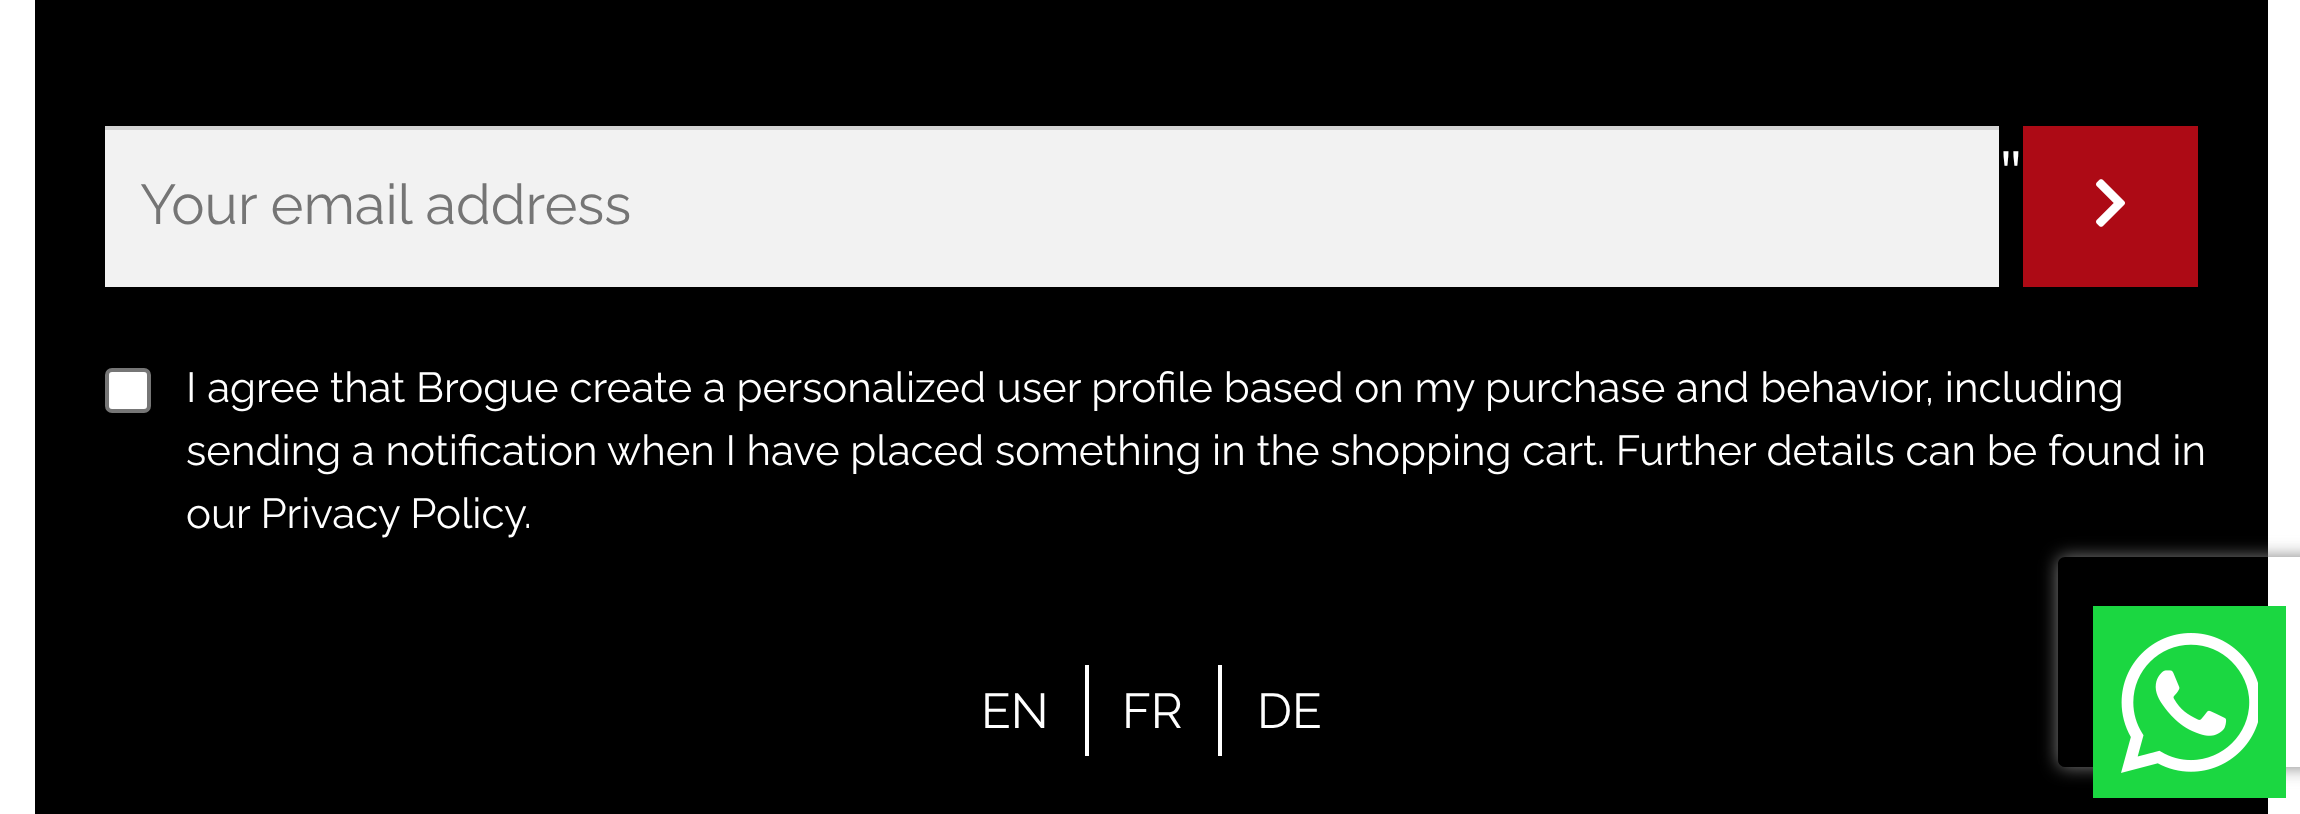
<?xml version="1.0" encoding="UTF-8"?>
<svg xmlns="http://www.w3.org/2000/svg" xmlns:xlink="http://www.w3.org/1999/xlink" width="2300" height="814">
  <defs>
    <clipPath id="clip1"><path d="M 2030 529 h 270 v 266 h -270 z m 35 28 h 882 c 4 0 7 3 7 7 v 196 c 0 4 -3 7 -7 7 h -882 c -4 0 -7 -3 -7 -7 v -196 c 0 -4 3 -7 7 -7 z" clip-rule="evenodd" /></clipPath>
  </defs>
  <rect width="100%" height="100%" fill="#ffffff" />
  <rect x="35" width="2233" height="814" fill="#000000" />
  <rect x="2023" y="126" width="175" height="161" fill="#ad0a15" />
  <image x="2096" y="179" width="29" height="48" xlink:href="image1.png" />
  <rect x="105" y="130" width="1894" height="157" fill="#f2f2f2" />
  <rect x="105" y="126" width="1894" height="4" fill="#d4d4d4" />
  <rect x="107" y="370" width="42" height="41" rx="5" fill="#ffffff" stroke="#767676" stroke-width="4" />
  <rect x="1085" y="665" width="4" height="91" fill="#ffffff" />
  <rect x="1218" y="665" width="4" height="91" fill="#ffffff" />
  <g clip-path="url(#clip1)">
    <rect x="2058" y="557" width="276" height="210" rx="7" fill="#808080" filter="blur(9px)" />
  </g>
  <rect x="2093" y="606" width="193" height="192" fill="#1bd741" />
  <image x="2121" y="633" width="137" height="140" xlink:href="image2.png" />
  <text x="1999" y="190" style="font-family: Source Sans Pro; font-size: 56px; fill: #ffffff">"</text>
  <text x="140" y="224" style="font-family: Raleway; font-size: 56px; fill: #757575">Your email address</text>
  <text x="186" y="402" style="font-family: Raleway; font-size: 42px; fill: #ffffff">I agree that Brogue create a personalized user profile based on my purchase and behavior, including</text>
  <text x="186" y="465" style="font-family: Raleway; font-size: 42px; fill: #ffffff">sending a notification when I have placed something in the shopping cart. Further details can be found in</text>
  <text x="186" y="528" style="font-family: Raleway; font-size: 42px; fill: #ffffff">our Privacy Policy.</text>
  <text x="981" y="728" style="font-family: Raleway; font-size: 49px; fill: #ffffff">EN</text>
  <text x="1122" y="728" style="font-family: Raleway; font-size: 49px; fill: #ffffff">FR</text>
  <text x="1257" y="728" style="font-family: Raleway; font-size: 49px; fill: #ffffff">DE</text>
</svg>
